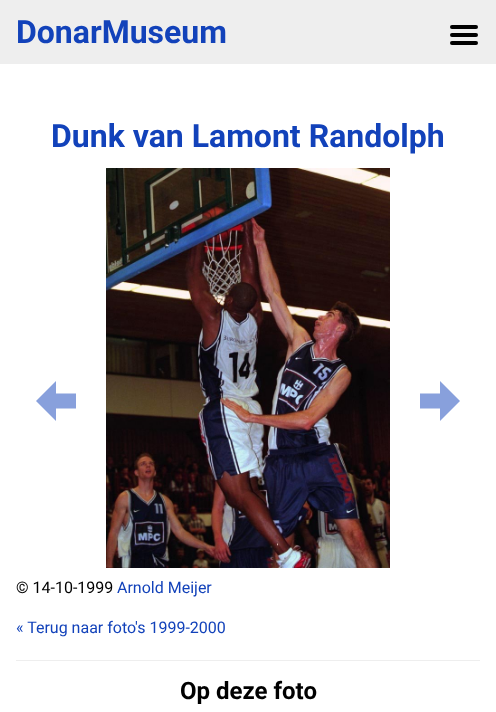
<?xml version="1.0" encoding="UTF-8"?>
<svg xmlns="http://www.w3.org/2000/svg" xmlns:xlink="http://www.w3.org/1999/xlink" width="496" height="712">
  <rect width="100%" height="100%" fill="#eeeeee" />
  <image x="450" y="25" width="28" height="20" xlink:href="image1.png" />
  <rect y="64" width="496" height="648" fill="#ffffff" />
  <image x="106" y="168" width="284" height="400" xlink:href="image2.png" />
  <image x="36" y="381" width="40" height="40" xlink:href="image3.png" />
  <image x="420" y="381" width="40" height="40" xlink:href="image4.png" />
  <rect x="16" y="660" width="464" height="1" fill="#eeeeee" />
  <text x="16" y="43" style="font-family: Roboto; font-size: 32px; font-weight: bold; fill: #1242ba">DonarMuseum</text>
  <text x="51" y="147" style="font-family: Roboto; font-size: 32px; font-weight: bold; fill: #1242ba">Dunk van Lamont Randolph</text>
  <text x="16" y="593" style="font-family: Roboto; font-size: 16px; fill: #000000">© 14-10-1999</text>
  <text x="117" y="593" style="font-family: Roboto; font-size: 16px; fill: #1242ba">Arnold Meijer</text>
  <text x="16" y="633" style="font-family: Roboto; font-size: 16px; fill: #1242ba">« Terug naar foto's 1999-2000</text>
  <text x="180" y="699" style="font-family: Roboto; font-size: 24px; font-weight: bold; fill: #000000">Op deze foto</text>
</svg>
